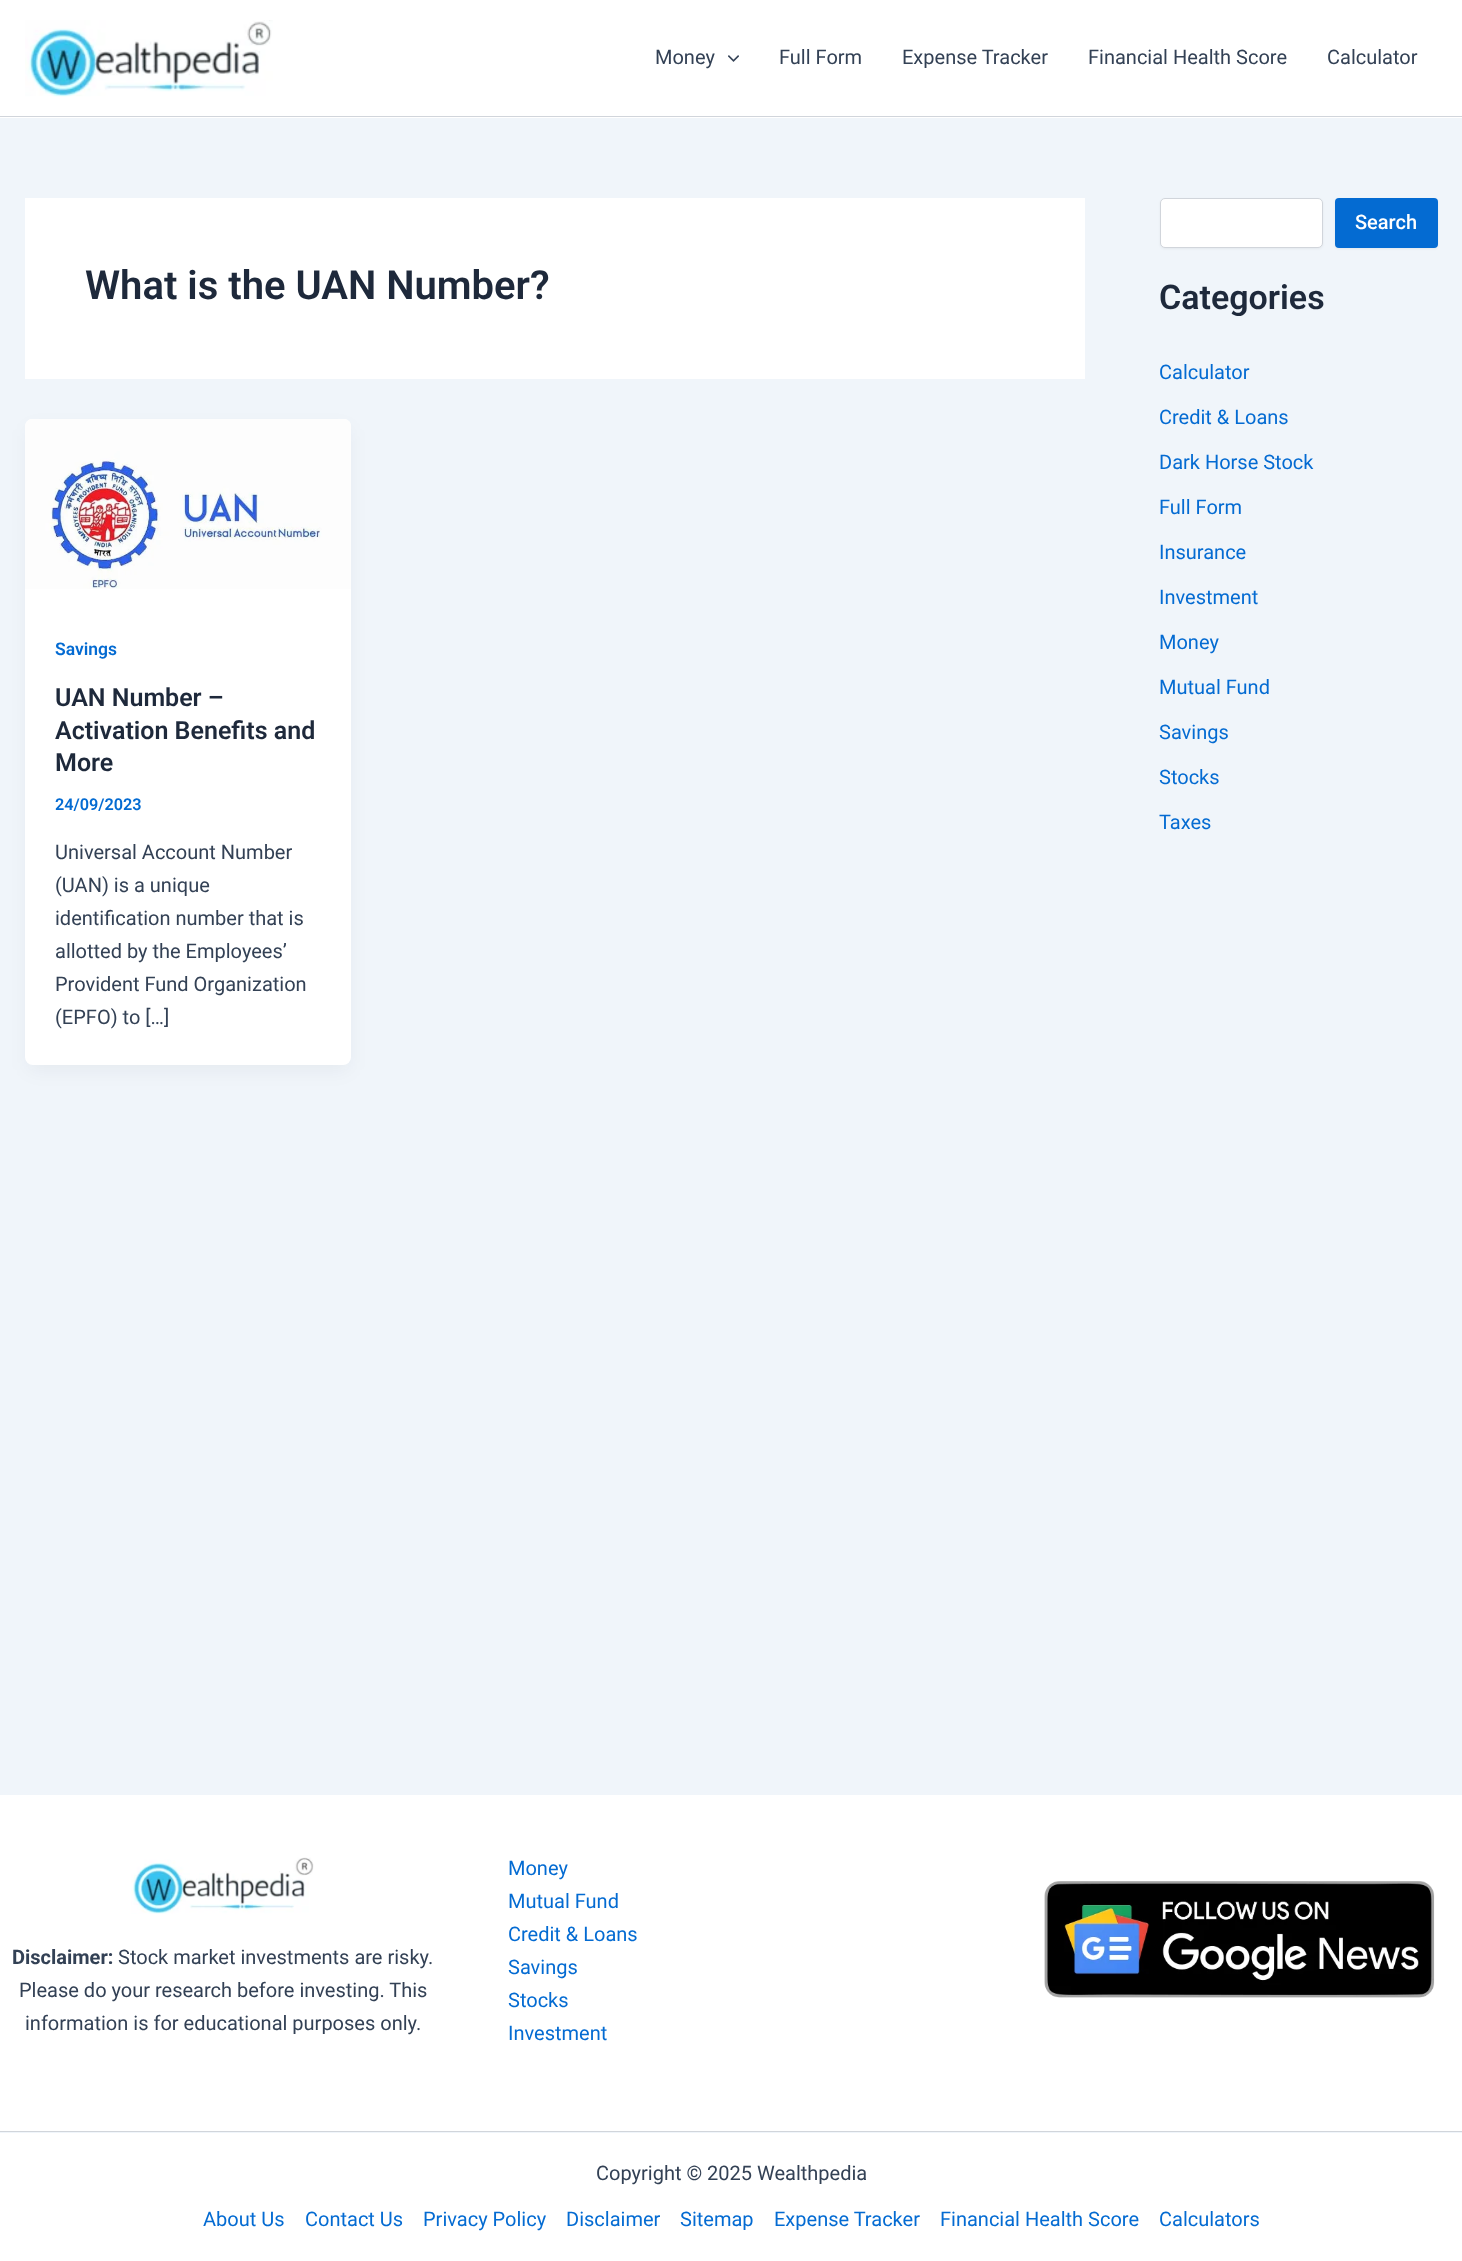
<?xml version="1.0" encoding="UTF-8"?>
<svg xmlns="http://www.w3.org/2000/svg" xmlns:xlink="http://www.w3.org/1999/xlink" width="1462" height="2261">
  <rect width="100%" height="100%" fill="#f0f5fa" />
  <rect width="1462" height="118" fill="#ffffff" />
  <rect y="116" width="1462" height="1" fill="#d1d5db" />
  <image x="25" y="20" width="248" height="77" xlink:href="image1.png" />
  <image x="728" y="55" width="11" height="7" xlink:href="image2.png" />
  <rect x="25" y="198" width="1060" height="181" fill="#ffffff" />
  <rect x="28" y="429" width="321" height="641" rx="5" fill="#101828" fill-opacity="0.05" filter="blur(9.5px)" />
  <rect x="25" y="419" width="326" height="646" rx="8" fill="#ffffff" />
  <image x="25" y="419" width="326" height="170" xlink:href="image3.png" />
  <rect x="1160" y="199" width="163" height="50" rx="5" fill="#000000" fill-opacity="0.05" filter="blur(1px)" />
  <rect x="1160.5" y="198.5" width="162" height="49" rx="4.5" fill="#ffffff" stroke="#d1d5db" />
  <rect x="1335" y="199" width="103" height="50" rx="4" fill="#000000" fill-opacity="0.05" filter="blur(1px)" />
  <rect x="1335" y="198" width="103" height="50" rx="4" fill="#046bd2" />
  <rect y="1795" width="1462" height="336" fill="#ffffff" />
  <image x="131" y="1857" width="183" height="57" xlink:href="image4.png" />
  <image x="1044" y="1881" width="391" height="117" xlink:href="image5.png" />
  <rect y="2133" width="1462" height="128" fill="#ffffff" />
  <rect y="2131" width="1462" height="1" fill="#d1d5db" />
  <text x="655" y="64" style="font-family: Roboto; font-size: 20px; fill: #334155">Money</text>
  <text x="779" y="64" style="font-family: Roboto; font-size: 20px; fill: #334155">Full Form</text>
  <text x="902" y="64" style="font-family: Roboto; font-size: 20px; fill: #334155">Expense Tracker</text>
  <text x="1088" y="64" style="font-family: Roboto; font-size: 20px; fill: #334155">Financial Health Score</text>
  <text x="1327" y="64" style="font-family: Roboto; font-size: 20px; fill: #334155">Calculator</text>
  <text x="85" y="299" style="font-family: Roboto; font-size: 40px; font-weight: 600; fill: #1e293b">What is the UAN Number?</text>
  <text x="55" y="655" style="font-family: Roboto; font-size: 17.5px; font-weight: 600; fill: #046bd2">Savings</text>
  <text x="55" y="706" style="font-family: Roboto; font-size: 25px; font-weight: 600; fill: #1e293b">UAN Number –</text>
  <text x="55" y="739" style="font-family: Roboto; font-size: 25px; font-weight: 600; fill: #1e293b">Activation Benefits and</text>
  <text x="55" y="771" style="font-family: Roboto; font-size: 25px; font-weight: 600; fill: #1e293b">More</text>
  <text x="55" y="810" style="font-family: Roboto; font-size: 16.25px; font-weight: 600; fill: #046bd2">24/09/2023</text>
  <text x="55" y="859" style="font-family: Roboto; font-size: 20px; fill: #334155">Universal Account Number</text>
  <text x="55" y="892" style="font-family: Roboto; font-size: 20px; fill: #334155">(UAN) is a unique</text>
  <text x="55" y="925" style="font-family: Roboto; font-size: 20px; fill: #334155">identification number that is</text>
  <text x="55" y="958" style="font-family: Roboto; font-size: 20px; fill: #334155">allotted by the Employees’</text>
  <text x="55" y="991" style="font-family: Roboto; font-size: 20px; fill: #334155">Provident Fund Organization</text>
  <text x="55" y="1024" style="font-family: Roboto; font-size: 20px; fill: #334155">(EPFO) to […]</text>
  <text x="1355" y="229" style="font-family: Roboto; font-size: 20px; font-weight: 500; fill: #ffffff">Search</text>
  <text x="1159" y="309" style="font-family: Roboto; font-size: 34px; font-weight: 600; fill: #1e293b">Categories</text>
  <text x="1159" y="379" style="font-family: Roboto; font-size: 20px; fill: #046bd2">Calculator</text>
  <text x="1159" y="424" style="font-family: Roboto; font-size: 20px; fill: #046bd2">Credit &amp; Loans</text>
  <text x="1159" y="469" style="font-family: Roboto; font-size: 20px; fill: #046bd2">Dark Horse Stock</text>
  <text x="1159" y="514" style="font-family: Roboto; font-size: 20px; fill: #046bd2">Full Form</text>
  <text x="1159" y="559" style="font-family: Roboto; font-size: 20px; fill: #046bd2">Insurance</text>
  <text x="1159" y="604" style="font-family: Roboto; font-size: 20px; fill: #046bd2">Investment</text>
  <text x="1159" y="649" style="font-family: Roboto; font-size: 20px; fill: #046bd2">Money</text>
  <text x="1159" y="694" style="font-family: Roboto; font-size: 20px; fill: #046bd2">Mutual Fund</text>
  <text x="1159" y="739" style="font-family: Roboto; font-size: 20px; fill: #046bd2">Savings</text>
  <text x="1159" y="784" style="font-family: Roboto; font-size: 20px; fill: #046bd2">Stocks</text>
  <text x="1159" y="829" style="font-family: Roboto; font-size: 20px; fill: #046bd2">Taxes</text>
  <text x="12" y="1964" style="font-family: Roboto; font-size: 20px; font-weight: bold; fill: #334155">Disclaimer:</text>
  <text x="118" y="1964" style="font-family: Roboto; font-size: 20px; fill: #334155">Stock market investments are risky.</text>
  <text x="19" y="1997" style="font-family: Roboto; font-size: 20px; fill: #334155">Please do your research before investing. This</text>
  <text x="25" y="2030" style="font-family: Roboto; font-size: 20px; fill: #334155">information is for educational purposes only.</text>
  <text x="508" y="1875" style="font-family: Roboto; font-size: 20px; fill: #046bd2">Money</text>
  <text x="508" y="1908" style="font-family: Roboto; font-size: 20px; fill: #046bd2">Mutual Fund</text>
  <text x="508" y="1941" style="font-family: Roboto; font-size: 20px; fill: #046bd2">Credit &amp; Loans</text>
  <text x="508" y="1974" style="font-family: Roboto; font-size: 20px; fill: #046bd2">Savings</text>
  <text x="508" y="2007" style="font-family: Roboto; font-size: 20px; fill: #046bd2">Stocks</text>
  <text x="508" y="2040" style="font-family: Roboto; font-size: 20px; fill: #046bd2">Investment</text>
  <text x="596" y="2180" style="font-family: Roboto; font-size: 20px; fill: #334155">Copyright © 2025 Wealthpedia</text>
  <text x="203" y="2226" style="font-family: Roboto; font-size: 20px; fill: #046bd2">About Us</text>
  <text x="305" y="2226" style="font-family: Roboto; font-size: 20px; fill: #046bd2">Contact Us</text>
  <text x="423" y="2226" style="font-family: Roboto; font-size: 20px; fill: #046bd2">Privacy Policy</text>
  <text x="566" y="2226" style="font-family: Roboto; font-size: 20px; fill: #046bd2">Disclaimer</text>
  <text x="680" y="2226" style="font-family: Roboto; font-size: 20px; fill: #046bd2">Sitemap</text>
  <text x="774" y="2226" style="font-family: Roboto; font-size: 20px; fill: #046bd2">Expense Tracker</text>
  <text x="940" y="2226" style="font-family: Roboto; font-size: 20px; fill: #046bd2">Financial Health Score</text>
  <text x="1159" y="2226" style="font-family: Roboto; font-size: 20px; fill: #046bd2">Calculators</text>
</svg>
